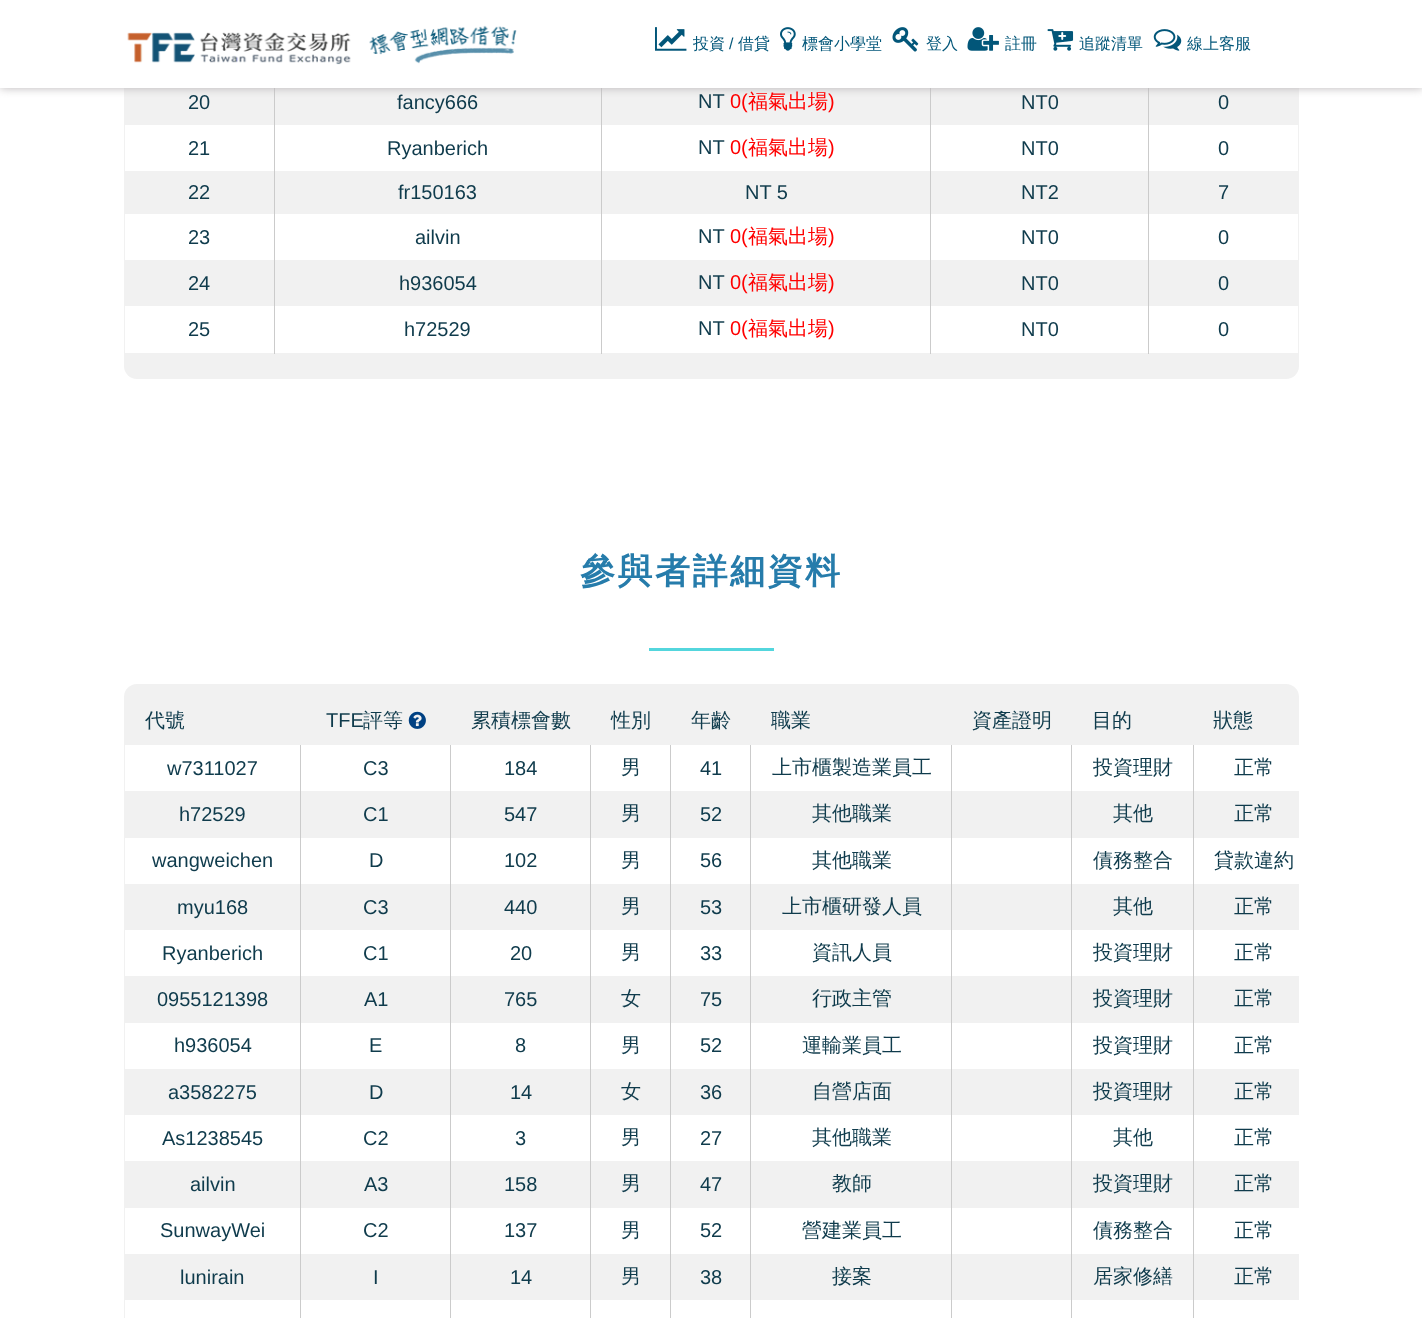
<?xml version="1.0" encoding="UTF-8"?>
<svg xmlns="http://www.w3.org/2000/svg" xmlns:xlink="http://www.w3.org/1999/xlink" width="1422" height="1318">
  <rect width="100%" height="100%" fill="#ffffff" />
  <rect x="124" y="-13" width="1175" height="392" rx="13" fill="#f1f1f1" />
  <rect x="274" y="88" width="1" height="266" fill="#cbcbcb" />
  <rect x="601" y="88" width="1" height="266" fill="#cbcbcb" />
  <rect x="930" y="88" width="1" height="266" fill="#cbcbcb" />
  <rect x="1148" y="88" width="1" height="266" fill="#cbcbcb" />
  <rect width="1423" height="88" fill="#bab6b8" filter="blur(5px)" />
  <rect width="1422" height="88" fill="#ffffff" />
  <image x="127" y="25" width="390" height="40" xlink:href="image1.png" />
  <image x="655" y="27" width="32" height="24" xlink:href="image2.png" />
  <image x="780" y="27" width="16" height="24" xlink:href="image3.png" />
  <image x="892" y="27" width="27" height="25" xlink:href="image4.png" />
  <image x="967" y="27" width="32" height="24" xlink:href="image5.png" />
  <image x="1047" y="29" width="27" height="22" xlink:href="image6.png" />
  <image x="1153" y="29" width="29" height="22" xlink:href="image7.png" />
  <rect x="125" y="125" width="149" height="46" fill="#ffffff" />
  <rect x="275" y="125" width="326" height="46" fill="#ffffff" />
  <rect x="602" y="125" width="328" height="46" fill="#ffffff" />
  <rect x="931" y="125" width="217" height="46" fill="#ffffff" />
  <rect x="1149" y="125" width="149" height="46" fill="#ffffff" />
  <rect x="125" y="214" width="149" height="46" fill="#ffffff" />
  <rect x="275" y="214" width="326" height="46" fill="#ffffff" />
  <rect x="602" y="214" width="328" height="46" fill="#ffffff" />
  <rect x="931" y="214" width="217" height="46" fill="#ffffff" />
  <rect x="1149" y="214" width="149" height="46" fill="#ffffff" />
  <rect x="125" y="306" width="149" height="47" fill="#ffffff" />
  <rect x="275" y="306" width="326" height="47" fill="#ffffff" />
  <rect x="602" y="306" width="328" height="47" fill="#ffffff" />
  <rect x="931" y="306" width="217" height="47" fill="#ffffff" />
  <rect x="1149" y="306" width="149" height="47" fill="#ffffff" />
  <rect x="649" y="648" width="125" height="3" fill="#53d6dd" />
  <rect x="124" y="684" width="1175" height="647" rx="13" fill="#f1f1f1" />
  <image x="408" y="711" width="18" height="18" xlink:href="image8.png" />
  <rect x="301" y="1300" width="149" height="18" fill="#ffffff" />
  <rect x="300" y="745" width="1" height="573" fill="#cbcbcb" />
  <rect x="451" y="1300" width="139" height="18" fill="#ffffff" />
  <rect x="450" y="745" width="1" height="573" fill="#cbcbcb" />
  <rect x="591" y="1300" width="79" height="18" fill="#ffffff" />
  <rect x="590" y="745" width="1" height="573" fill="#cbcbcb" />
  <rect x="671" y="1300" width="79" height="18" fill="#ffffff" />
  <rect x="670" y="745" width="1" height="573" fill="#cbcbcb" />
  <rect x="751" y="1300" width="442" height="18" fill="#ffffff" />
  <rect x="750" y="745" width="1" height="573" fill="#cbcbcb" />
  <rect x="125" y="1300" width="175" height="18" fill="#ffffff" />
  <rect x="751" y="745" width="442" height="46" fill="#ffffff" />
  <rect x="751" y="838" width="442" height="46" fill="#ffffff" />
  <rect x="751" y="930" width="442" height="46" fill="#ffffff" />
  <rect x="751" y="1023" width="442" height="46" fill="#ffffff" />
  <rect x="751" y="1115" width="442" height="46" fill="#ffffff" />
  <rect x="751" y="1208" width="442" height="46" fill="#ffffff" />
  <rect x="951" y="745" width="1" height="573" fill="#cbcbcb" />
  <rect x="1071" y="745" width="1" height="573" fill="#cbcbcb" />
  <rect x="1194" y="1300" width="105" height="18" fill="#ffffff" />
  <rect x="1193" y="745" width="1" height="573" fill="#cbcbcb" />
  <rect x="125" y="745" width="175" height="46" fill="#ffffff" />
  <rect x="301" y="745" width="149" height="46" fill="#ffffff" />
  <rect x="451" y="745" width="139" height="46" fill="#ffffff" />
  <rect x="591" y="745" width="79" height="46" fill="#ffffff" />
  <rect x="671" y="745" width="79" height="46" fill="#ffffff" />
  <rect x="1194" y="745" width="105" height="46" fill="#ffffff" />
  <rect x="125" y="838" width="175" height="46" fill="#ffffff" />
  <rect x="301" y="838" width="149" height="46" fill="#ffffff" />
  <rect x="451" y="838" width="139" height="46" fill="#ffffff" />
  <rect x="591" y="838" width="79" height="46" fill="#ffffff" />
  <rect x="671" y="838" width="79" height="46" fill="#ffffff" />
  <rect x="1194" y="838" width="105" height="46" fill="#ffffff" />
  <rect x="125" y="930" width="175" height="46" fill="#ffffff" />
  <rect x="301" y="930" width="149" height="46" fill="#ffffff" />
  <rect x="451" y="930" width="139" height="46" fill="#ffffff" />
  <rect x="591" y="930" width="79" height="46" fill="#ffffff" />
  <rect x="671" y="930" width="79" height="46" fill="#ffffff" />
  <rect x="1194" y="930" width="105" height="46" fill="#ffffff" />
  <rect x="125" y="1023" width="175" height="46" fill="#ffffff" />
  <rect x="301" y="1023" width="149" height="46" fill="#ffffff" />
  <rect x="451" y="1023" width="139" height="46" fill="#ffffff" />
  <rect x="591" y="1023" width="79" height="46" fill="#ffffff" />
  <rect x="671" y="1023" width="79" height="46" fill="#ffffff" />
  <rect x="1194" y="1023" width="105" height="46" fill="#ffffff" />
  <rect x="125" y="1115" width="175" height="46" fill="#ffffff" />
  <rect x="301" y="1115" width="149" height="46" fill="#ffffff" />
  <rect x="451" y="1115" width="139" height="46" fill="#ffffff" />
  <rect x="591" y="1115" width="79" height="46" fill="#ffffff" />
  <rect x="671" y="1115" width="79" height="46" fill="#ffffff" />
  <rect x="1194" y="1115" width="105" height="46" fill="#ffffff" />
  <rect x="125" y="1208" width="175" height="46" fill="#ffffff" />
  <rect x="301" y="1208" width="149" height="46" fill="#ffffff" />
  <rect x="451" y="1208" width="139" height="46" fill="#ffffff" />
  <rect x="591" y="1208" width="79" height="46" fill="#ffffff" />
  <rect x="671" y="1208" width="79" height="46" fill="#ffffff" />
  <rect x="1194" y="1208" width="105" height="46" fill="#ffffff" />
  <text x="693" y="49" style="font-family: WenQuanYi Zen Hei; font-size: 16px; font-weight: 500; fill: #025679">投資</text>
  <text x="729" y="49" style="font-family: Liberation Sans; font-size: 16px; fill: #025679">/</text>
  <text x="738" y="49" style="font-family: WenQuanYi Zen Hei; font-size: 16px; font-weight: 500; fill: #025679">借貸</text>
  <text x="802" y="49" style="font-family: WenQuanYi Zen Hei; font-size: 16px; font-weight: 500; fill: #025679">標會小學堂</text>
  <text x="926" y="49" style="font-family: WenQuanYi Zen Hei; font-size: 16px; font-weight: 500; fill: #025679">登入</text>
  <text x="1005" y="49" style="font-family: WenQuanYi Zen Hei; font-size: 16px; font-weight: 500; fill: #025679">註冊</text>
  <text x="1079" y="49" style="font-family: WenQuanYi Zen Hei; font-size: 16px; font-weight: 500; fill: #025679">追蹤清單</text>
  <text x="1187" y="49" style="font-family: WenQuanYi Zen Hei; font-size: 16px; font-weight: 500; fill: #025679">線上客服</text>
  <text x="188" y="109" style="font-family: Liberation Sans; font-size: 20px; fill: #0f3b4c">20</text>
  <text x="397" y="109" style="font-family: Liberation Sans; font-size: 20px; fill: #0f3b4c">fancy666</text>
  <text x="698" y="108" style="font-family: Liberation Sans; font-size: 20px; fill: #0f3b4c">NT</text>
  <text x="730" y="108" style="font-family: Liberation Sans; font-size: 20px; fill: #ff0000">0(</text>
  <text x="748" y="108" style="font-family: WenQuanYi Zen Hei; font-size: 20px; font-weight: 500; fill: #ff0000">福氣出場</text>
  <text x="828" y="108" style="font-family: Liberation Sans; font-size: 20px; fill: #ff0000">)</text>
  <text x="1021" y="109" style="font-family: Liberation Sans; font-size: 20px; fill: #0f3b4c">NT0</text>
  <text x="1218" y="109" style="font-family: Liberation Sans; font-size: 20px; fill: #0f3b4c">0</text>
  <text x="188" y="155" style="font-family: Liberation Sans; font-size: 20px; fill: #0f3b4c">21</text>
  <text x="387" y="155" style="font-family: Liberation Sans; font-size: 20px; fill: #0f3b4c">Ryanberich</text>
  <text x="698" y="154" style="font-family: Liberation Sans; font-size: 20px; fill: #0f3b4c">NT</text>
  <text x="730" y="154" style="font-family: Liberation Sans; font-size: 20px; fill: #ff0000">0(</text>
  <text x="748" y="154" style="font-family: WenQuanYi Zen Hei; font-size: 20px; font-weight: 500; fill: #ff0000">福氣出場</text>
  <text x="828" y="154" style="font-family: Liberation Sans; font-size: 20px; fill: #ff0000">)</text>
  <text x="1021" y="155" style="font-family: Liberation Sans; font-size: 20px; fill: #0f3b4c">NT0</text>
  <text x="1218" y="155" style="font-family: Liberation Sans; font-size: 20px; fill: #0f3b4c">0</text>
  <text x="188" y="199" style="font-family: Liberation Sans; font-size: 20px; fill: #0f3b4c">22</text>
  <text x="398" y="199" style="font-family: Liberation Sans; font-size: 20px; fill: #0f3b4c">fr150163</text>
  <text x="745" y="199" style="font-family: Liberation Sans; font-size: 20px; fill: #0f3b4c">NT 5</text>
  <text x="1021" y="199" style="font-family: Liberation Sans; font-size: 20px; fill: #0f3b4c">NT2</text>
  <text x="1218" y="199" style="font-family: Liberation Sans; font-size: 20px; fill: #0f3b4c">7</text>
  <text x="188" y="244" style="font-family: Liberation Sans; font-size: 20px; fill: #0f3b4c">23</text>
  <text x="415" y="244" style="font-family: Liberation Sans; font-size: 20px; fill: #0f3b4c">ailvin</text>
  <text x="698" y="243" style="font-family: Liberation Sans; font-size: 20px; fill: #0f3b4c">NT</text>
  <text x="730" y="243" style="font-family: Liberation Sans; font-size: 20px; fill: #ff0000">0(</text>
  <text x="748" y="243" style="font-family: WenQuanYi Zen Hei; font-size: 20px; font-weight: 500; fill: #ff0000">福氣出場</text>
  <text x="828" y="243" style="font-family: Liberation Sans; font-size: 20px; fill: #ff0000">)</text>
  <text x="1021" y="244" style="font-family: Liberation Sans; font-size: 20px; fill: #0f3b4c">NT0</text>
  <text x="1218" y="244" style="font-family: Liberation Sans; font-size: 20px; fill: #0f3b4c">0</text>
  <text x="188" y="290" style="font-family: Liberation Sans; font-size: 20px; fill: #0f3b4c">24</text>
  <text x="399" y="290" style="font-family: Liberation Sans; font-size: 20px; fill: #0f3b4c">h936054</text>
  <text x="698" y="289" style="font-family: Liberation Sans; font-size: 20px; fill: #0f3b4c">NT</text>
  <text x="730" y="289" style="font-family: Liberation Sans; font-size: 20px; fill: #ff0000">0(</text>
  <text x="748" y="289" style="font-family: WenQuanYi Zen Hei; font-size: 20px; font-weight: 500; fill: #ff0000">福氣出場</text>
  <text x="828" y="289" style="font-family: Liberation Sans; font-size: 20px; fill: #ff0000">)</text>
  <text x="1021" y="290" style="font-family: Liberation Sans; font-size: 20px; fill: #0f3b4c">NT0</text>
  <text x="1218" y="290" style="font-family: Liberation Sans; font-size: 20px; fill: #0f3b4c">0</text>
  <text x="188" y="336" style="font-family: Liberation Sans; font-size: 20px; fill: #0f3b4c">25</text>
  <text x="404" y="336" style="font-family: Liberation Sans; font-size: 20px; fill: #0f3b4c">h72529</text>
  <text x="698" y="335" style="font-family: Liberation Sans; font-size: 20px; fill: #0f3b4c">NT</text>
  <text x="730" y="335" style="font-family: Liberation Sans; font-size: 20px; fill: #ff0000">0(</text>
  <text x="748" y="335" style="font-family: WenQuanYi Zen Hei; font-size: 20px; font-weight: 500; fill: #ff0000">福氣出場</text>
  <text x="828" y="335" style="font-family: Liberation Sans; font-size: 20px; fill: #ff0000">)</text>
  <text x="1021" y="336" style="font-family: Liberation Sans; font-size: 20px; fill: #0f3b4c">NT0</text>
  <text x="1218" y="336" style="font-family: Liberation Sans; font-size: 20px; fill: #0f3b4c">0</text>
  <text x="580" y="583" style="font-family: WenQuanYi Zen Hei; font-size: 35px; font-weight: bold; letter-spacing: 2.5px; fill: #267cab">參與者詳細資料</text>
  <text x="145" y="727" style="font-family: WenQuanYi Zen Hei; font-size: 20px; font-weight: 500; fill: #0f3b4c">代號</text>
  <text x="326" y="727" style="font-family: Liberation Sans; font-size: 20px; fill: #0f3b4c">TFE</text>
  <text x="363" y="727" style="font-family: WenQuanYi Zen Hei; font-size: 20px; font-weight: 500; fill: #0f3b4c">評等</text>
  <text x="471" y="727" style="font-family: WenQuanYi Zen Hei; font-size: 20px; font-weight: 500; fill: #0f3b4c">累積標會數</text>
  <text x="611" y="727" style="font-family: WenQuanYi Zen Hei; font-size: 20px; font-weight: 500; fill: #0f3b4c">性別</text>
  <text x="691" y="727" style="font-family: WenQuanYi Zen Hei; font-size: 20px; font-weight: 500; fill: #0f3b4c">年齡</text>
  <text x="771" y="727" style="font-family: WenQuanYi Zen Hei; font-size: 20px; font-weight: 500; fill: #0f3b4c">職業</text>
  <text x="972" y="727" style="font-family: WenQuanYi Zen Hei; font-size: 20px; font-weight: 500; fill: #0f3b4c">資產證明</text>
  <text x="1092" y="727" style="font-family: WenQuanYi Zen Hei; font-size: 20px; font-weight: 500; fill: #0f3b4c">目的</text>
  <text x="1213" y="727" style="font-family: WenQuanYi Zen Hei; font-size: 20px; font-weight: 500; fill: #0f3b4c">狀態</text>
  <text x="167" y="775" style="font-family: Liberation Sans; font-size: 20px; fill: #0f3b4c">w7311027</text>
  <text x="363" y="775" style="font-family: Liberation Sans; font-size: 20px; fill: #0f3b4c">C3</text>
  <text x="504" y="775" style="font-family: Liberation Sans; font-size: 20px; fill: #0f3b4c">184</text>
  <text x="621" y="774" style="font-family: WenQuanYi Zen Hei; font-size: 20px; font-weight: 500; fill: #0f3b4c">男</text>
  <text x="700" y="775" style="font-family: Liberation Sans; font-size: 20px; fill: #0f3b4c">41</text>
  <text x="772" y="774" style="font-family: WenQuanYi Zen Hei; font-size: 20px; font-weight: 500; fill: #0f3b4c">上市櫃製造業員工</text>
  <text x="1093" y="774" style="font-family: WenQuanYi Zen Hei; font-size: 20px; font-weight: 500; fill: #0f3b4c">投資理財</text>
  <text x="1234" y="774" style="font-family: WenQuanYi Zen Hei; font-size: 20px; font-weight: 500; fill: #0f3b4c">正常</text>
  <text x="179" y="821" style="font-family: Liberation Sans; font-size: 20px; fill: #0f3b4c">h72529</text>
  <text x="363" y="821" style="font-family: Liberation Sans; font-size: 20px; fill: #0f3b4c">C1</text>
  <text x="504" y="821" style="font-family: Liberation Sans; font-size: 20px; fill: #0f3b4c">547</text>
  <text x="621" y="820" style="font-family: WenQuanYi Zen Hei; font-size: 20px; font-weight: 500; fill: #0f3b4c">男</text>
  <text x="700" y="821" style="font-family: Liberation Sans; font-size: 20px; fill: #0f3b4c">52</text>
  <text x="812" y="820" style="font-family: WenQuanYi Zen Hei; font-size: 20px; font-weight: 500; fill: #0f3b4c">其他職業</text>
  <text x="1113" y="820" style="font-family: WenQuanYi Zen Hei; font-size: 20px; font-weight: 500; fill: #0f3b4c">其他</text>
  <text x="1234" y="820" style="font-family: WenQuanYi Zen Hei; font-size: 20px; font-weight: 500; fill: #0f3b4c">正常</text>
  <text x="152" y="867" style="font-family: Liberation Sans; font-size: 20px; fill: #0f3b4c">wangweichen</text>
  <text x="369" y="867" style="font-family: Liberation Sans; font-size: 20px; fill: #0f3b4c">D</text>
  <text x="504" y="867" style="font-family: Liberation Sans; font-size: 20px; fill: #0f3b4c">102</text>
  <text x="621" y="867" style="font-family: WenQuanYi Zen Hei; font-size: 20px; font-weight: 500; fill: #0f3b4c">男</text>
  <text x="700" y="867" style="font-family: Liberation Sans; font-size: 20px; fill: #0f3b4c">56</text>
  <text x="812" y="867" style="font-family: WenQuanYi Zen Hei; font-size: 20px; font-weight: 500; fill: #0f3b4c">其他職業</text>
  <text x="1093" y="867" style="font-family: WenQuanYi Zen Hei; font-size: 20px; font-weight: 500; fill: #0f3b4c">債務整合</text>
  <text x="1214" y="867" style="font-family: WenQuanYi Zen Hei; font-size: 20px; font-weight: 500; fill: #0f3b4c">貸款違約</text>
  <text x="177" y="914" style="font-family: Liberation Sans; font-size: 20px; fill: #0f3b4c">myu168</text>
  <text x="363" y="914" style="font-family: Liberation Sans; font-size: 20px; fill: #0f3b4c">C3</text>
  <text x="504" y="914" style="font-family: Liberation Sans; font-size: 20px; fill: #0f3b4c">440</text>
  <text x="621" y="913" style="font-family: WenQuanYi Zen Hei; font-size: 20px; font-weight: 500; fill: #0f3b4c">男</text>
  <text x="700" y="914" style="font-family: Liberation Sans; font-size: 20px; fill: #0f3b4c">53</text>
  <text x="782" y="913" style="font-family: WenQuanYi Zen Hei; font-size: 20px; font-weight: 500; fill: #0f3b4c">上市櫃研發人員</text>
  <text x="1113" y="913" style="font-family: WenQuanYi Zen Hei; font-size: 20px; font-weight: 500; fill: #0f3b4c">其他</text>
  <text x="1234" y="913" style="font-family: WenQuanYi Zen Hei; font-size: 20px; font-weight: 500; fill: #0f3b4c">正常</text>
  <text x="162" y="960" style="font-family: Liberation Sans; font-size: 20px; fill: #0f3b4c">Ryanberich</text>
  <text x="363" y="960" style="font-family: Liberation Sans; font-size: 20px; fill: #0f3b4c">C1</text>
  <text x="510" y="960" style="font-family: Liberation Sans; font-size: 20px; fill: #0f3b4c">20</text>
  <text x="621" y="959" style="font-family: WenQuanYi Zen Hei; font-size: 20px; font-weight: 500; fill: #0f3b4c">男</text>
  <text x="700" y="960" style="font-family: Liberation Sans; font-size: 20px; fill: #0f3b4c">33</text>
  <text x="812" y="959" style="font-family: WenQuanYi Zen Hei; font-size: 20px; font-weight: 500; fill: #0f3b4c">資訊人員</text>
  <text x="1093" y="959" style="font-family: WenQuanYi Zen Hei; font-size: 20px; font-weight: 500; fill: #0f3b4c">投資理財</text>
  <text x="1234" y="959" style="font-family: WenQuanYi Zen Hei; font-size: 20px; font-weight: 500; fill: #0f3b4c">正常</text>
  <text x="157" y="1006" style="font-family: Liberation Sans; font-size: 20px; fill: #0f3b4c">0955121398</text>
  <text x="364" y="1006" style="font-family: Liberation Sans; font-size: 20px; fill: #0f3b4c">A1</text>
  <text x="504" y="1006" style="font-family: Liberation Sans; font-size: 20px; fill: #0f3b4c">765</text>
  <text x="621" y="1005" style="font-family: WenQuanYi Zen Hei; font-size: 20px; font-weight: 500; fill: #0f3b4c">女</text>
  <text x="700" y="1006" style="font-family: Liberation Sans; font-size: 20px; fill: #0f3b4c">75</text>
  <text x="812" y="1005" style="font-family: WenQuanYi Zen Hei; font-size: 20px; font-weight: 500; fill: #0f3b4c">行政主管</text>
  <text x="1093" y="1005" style="font-family: WenQuanYi Zen Hei; font-size: 20px; font-weight: 500; fill: #0f3b4c">投資理財</text>
  <text x="1234" y="1005" style="font-family: WenQuanYi Zen Hei; font-size: 20px; font-weight: 500; fill: #0f3b4c">正常</text>
  <text x="174" y="1052" style="font-family: Liberation Sans; font-size: 20px; fill: #0f3b4c">h936054</text>
  <text x="369" y="1052" style="font-family: Liberation Sans; font-size: 20px; fill: #0f3b4c">E</text>
  <text x="515" y="1052" style="font-family: Liberation Sans; font-size: 20px; fill: #0f3b4c">8</text>
  <text x="621" y="1052" style="font-family: WenQuanYi Zen Hei; font-size: 20px; font-weight: 500; fill: #0f3b4c">男</text>
  <text x="700" y="1052" style="font-family: Liberation Sans; font-size: 20px; fill: #0f3b4c">52</text>
  <text x="802" y="1052" style="font-family: WenQuanYi Zen Hei; font-size: 20px; font-weight: 500; fill: #0f3b4c">運輸業員工</text>
  <text x="1093" y="1052" style="font-family: WenQuanYi Zen Hei; font-size: 20px; font-weight: 500; fill: #0f3b4c">投資理財</text>
  <text x="1234" y="1052" style="font-family: WenQuanYi Zen Hei; font-size: 20px; font-weight: 500; fill: #0f3b4c">正常</text>
  <text x="168" y="1099" style="font-family: Liberation Sans; font-size: 20px; fill: #0f3b4c">a3582275</text>
  <text x="369" y="1099" style="font-family: Liberation Sans; font-size: 20px; fill: #0f3b4c">D</text>
  <text x="510" y="1099" style="font-family: Liberation Sans; font-size: 20px; fill: #0f3b4c">14</text>
  <text x="621" y="1098" style="font-family: WenQuanYi Zen Hei; font-size: 20px; font-weight: 500; fill: #0f3b4c">女</text>
  <text x="700" y="1099" style="font-family: Liberation Sans; font-size: 20px; fill: #0f3b4c">36</text>
  <text x="812" y="1098" style="font-family: WenQuanYi Zen Hei; font-size: 20px; font-weight: 500; fill: #0f3b4c">自營店面</text>
  <text x="1093" y="1098" style="font-family: WenQuanYi Zen Hei; font-size: 20px; font-weight: 500; fill: #0f3b4c">投資理財</text>
  <text x="1234" y="1098" style="font-family: WenQuanYi Zen Hei; font-size: 20px; font-weight: 500; fill: #0f3b4c">正常</text>
  <text x="162" y="1145" style="font-family: Liberation Sans; font-size: 20px; fill: #0f3b4c">As1238545</text>
  <text x="363" y="1145" style="font-family: Liberation Sans; font-size: 20px; fill: #0f3b4c">C2</text>
  <text x="515" y="1145" style="font-family: Liberation Sans; font-size: 20px; fill: #0f3b4c">3</text>
  <text x="621" y="1144" style="font-family: WenQuanYi Zen Hei; font-size: 20px; font-weight: 500; fill: #0f3b4c">男</text>
  <text x="700" y="1145" style="font-family: Liberation Sans; font-size: 20px; fill: #0f3b4c">27</text>
  <text x="812" y="1144" style="font-family: WenQuanYi Zen Hei; font-size: 20px; font-weight: 500; fill: #0f3b4c">其他職業</text>
  <text x="1113" y="1144" style="font-family: WenQuanYi Zen Hei; font-size: 20px; font-weight: 500; fill: #0f3b4c">其他</text>
  <text x="1234" y="1144" style="font-family: WenQuanYi Zen Hei; font-size: 20px; font-weight: 500; fill: #0f3b4c">正常</text>
  <text x="190" y="1191" style="font-family: Liberation Sans; font-size: 20px; fill: #0f3b4c">ailvin</text>
  <text x="364" y="1191" style="font-family: Liberation Sans; font-size: 20px; fill: #0f3b4c">A3</text>
  <text x="504" y="1191" style="font-family: Liberation Sans; font-size: 20px; fill: #0f3b4c">158</text>
  <text x="621" y="1190" style="font-family: WenQuanYi Zen Hei; font-size: 20px; font-weight: 500; fill: #0f3b4c">男</text>
  <text x="700" y="1191" style="font-family: Liberation Sans; font-size: 20px; fill: #0f3b4c">47</text>
  <text x="832" y="1190" style="font-family: WenQuanYi Zen Hei; font-size: 20px; font-weight: 500; fill: #0f3b4c">教師</text>
  <text x="1093" y="1190" style="font-family: WenQuanYi Zen Hei; font-size: 20px; font-weight: 500; fill: #0f3b4c">投資理財</text>
  <text x="1234" y="1190" style="font-family: WenQuanYi Zen Hei; font-size: 20px; font-weight: 500; fill: #0f3b4c">正常</text>
  <text x="160" y="1237" style="font-family: Liberation Sans; font-size: 20px; fill: #0f3b4c">SunwayWei</text>
  <text x="363" y="1237" style="font-family: Liberation Sans; font-size: 20px; fill: #0f3b4c">C2</text>
  <text x="504" y="1237" style="font-family: Liberation Sans; font-size: 20px; fill: #0f3b4c">137</text>
  <text x="621" y="1237" style="font-family: WenQuanYi Zen Hei; font-size: 20px; font-weight: 500; fill: #0f3b4c">男</text>
  <text x="700" y="1237" style="font-family: Liberation Sans; font-size: 20px; fill: #0f3b4c">52</text>
  <text x="802" y="1237" style="font-family: WenQuanYi Zen Hei; font-size: 20px; font-weight: 500; fill: #0f3b4c">營建業員工</text>
  <text x="1093" y="1237" style="font-family: WenQuanYi Zen Hei; font-size: 20px; font-weight: 500; fill: #0f3b4c">債務整合</text>
  <text x="1234" y="1237" style="font-family: WenQuanYi Zen Hei; font-size: 20px; font-weight: 500; fill: #0f3b4c">正常</text>
  <text x="180" y="1284" style="font-family: Liberation Sans; font-size: 20px; fill: #0f3b4c">lunirain</text>
  <text x="373" y="1284" style="font-family: Liberation Sans; font-size: 20px; fill: #0f3b4c">I</text>
  <text x="510" y="1284" style="font-family: Liberation Sans; font-size: 20px; fill: #0f3b4c">14</text>
  <text x="621" y="1283" style="font-family: WenQuanYi Zen Hei; font-size: 20px; font-weight: 500; fill: #0f3b4c">男</text>
  <text x="700" y="1284" style="font-family: Liberation Sans; font-size: 20px; fill: #0f3b4c">38</text>
  <text x="832" y="1283" style="font-family: WenQuanYi Zen Hei; font-size: 20px; font-weight: 500; fill: #0f3b4c">接案</text>
  <text x="1093" y="1283" style="font-family: WenQuanYi Zen Hei; font-size: 20px; font-weight: 500; fill: #0f3b4c">居家修繕</text>
  <text x="1234" y="1283" style="font-family: WenQuanYi Zen Hei; font-size: 20px; font-weight: 500; fill: #0f3b4c">正常</text>
</svg>
